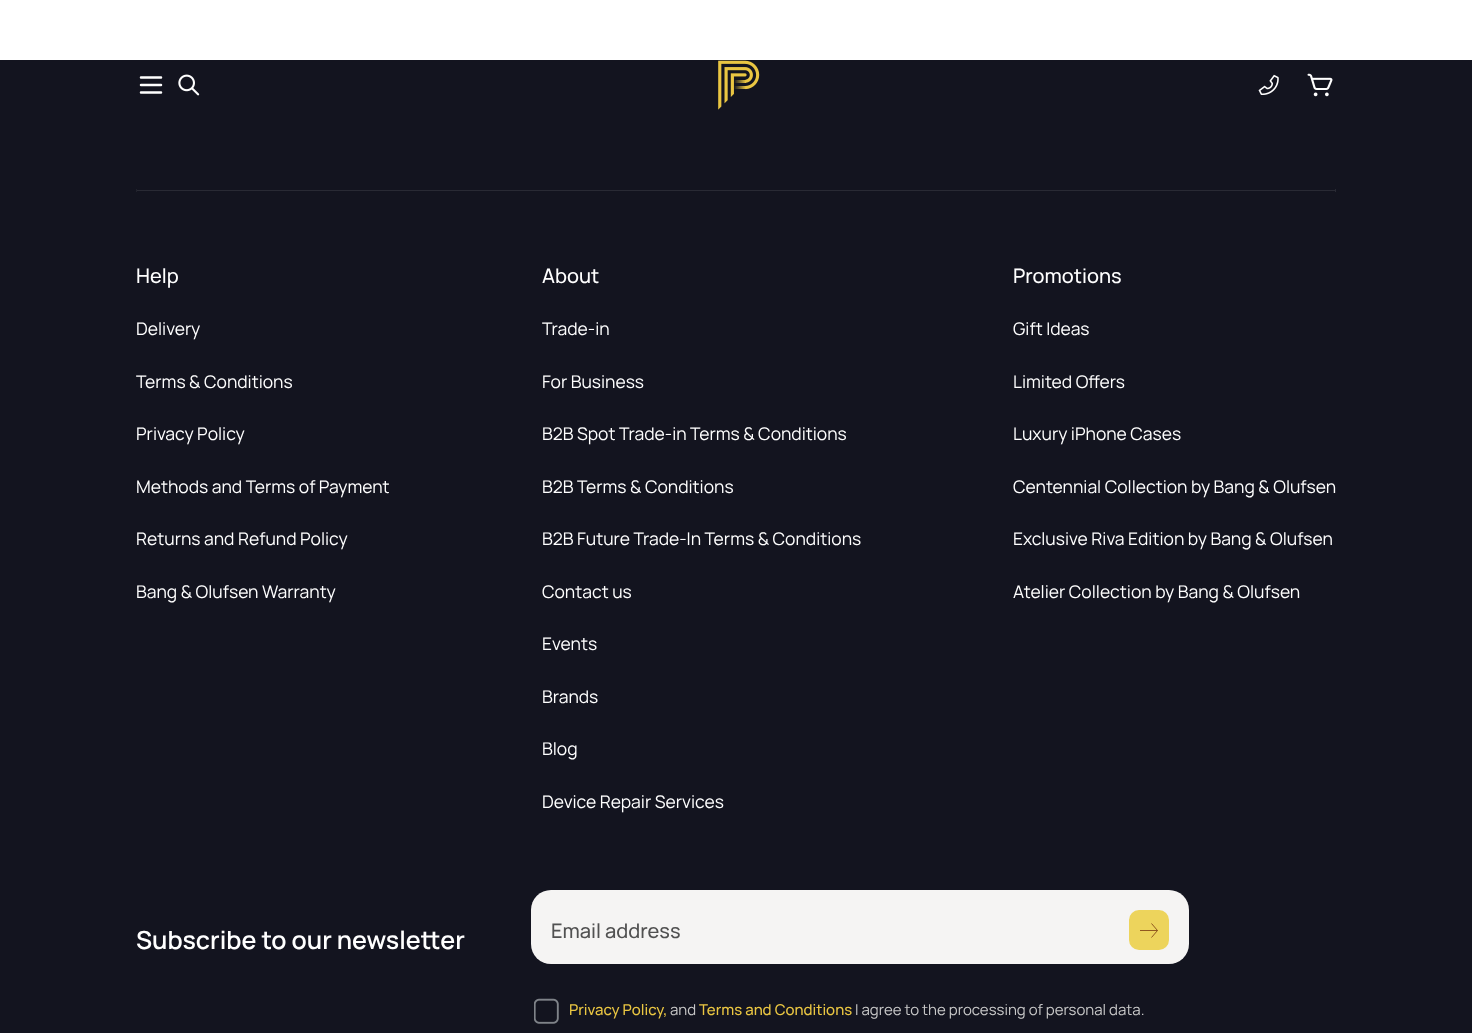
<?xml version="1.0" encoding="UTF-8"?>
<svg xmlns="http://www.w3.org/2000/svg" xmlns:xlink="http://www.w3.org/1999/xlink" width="1472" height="1033">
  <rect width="100%" height="100%" fill="#13141f" />
  <rect width="1472" height="60" fill="#ffffff" />
  <path d="M 141 77.5 h 20 m -20 7.5 h 20 m -20 7.5 h 20" fill="none" stroke="#ffffff" stroke-width="2.5" stroke-linecap="round" stroke-linejoin="round" />
  <image x="178" y="74" width="22" height="22" xlink:href="image1.png" />
  <image x="718" y="60" width="42" height="50" xlink:href="image2.png" />
  <image x="1258" y="74" width="21" height="21" xlink:href="image3.png" />
  <image x="1307" y="73" width="26" height="24" xlink:href="image4.png" />
  <rect x="1335" y="189" width="1" height="3" fill="#292a34" />
  <rect x="136" y="190" width="1200" height="1" fill="#292a34" />
  <rect x="136" y="189" width="1" height="3" fill="#21222c" />
  <rect x="531" y="890" width="658" height="74" rx="20" fill="#f5f4f3" />
  <rect x="1130.5" y="911.5" width="37" height="37" rx="8.5" fill="#edd45c" stroke="#edd45c" stroke-width="3" />
  <path d="M 1140 930.5 h 17.5 m 0 0 l -6 -7 m 6 7 l -6 7" fill="none" stroke="#874a19" stroke-width="0.9" />
  <image x="534" y="998" width="25" height="26" xlink:href="image5.png" />
  <text x="136" y="283" style="font-family: Manrope; font-size: 20px; font-weight: 500; fill: #ffffff">Help</text>
  <text x="136" y="335" style="font-family: Manrope; font-size: 17.5px; fill: #ffffff">Delivery</text>
  <text x="136" y="388" style="font-family: Manrope; font-size: 17.5px; fill: #ffffff">Terms &amp; Conditions</text>
  <text x="136" y="440" style="font-family: Manrope; font-size: 17.5px; fill: #ffffff">Privacy Policy</text>
  <text x="136" y="493" style="font-family: Manrope; font-size: 17.5px; fill: #ffffff">Methods and Terms of Payment</text>
  <text x="136" y="545" style="font-family: Manrope; font-size: 17.5px; fill: #ffffff">Returns and Refund Policy</text>
  <text x="136" y="598" style="font-family: Manrope; font-size: 17.5px; fill: #ffffff">Bang &amp; Olufsen Warranty</text>
  <text x="542" y="283" style="font-family: Manrope; font-size: 20px; font-weight: 500; fill: #ffffff">About</text>
  <text x="542" y="335" style="font-family: Manrope; font-size: 17.5px; fill: #ffffff">Trade-in</text>
  <text x="542" y="388" style="font-family: Manrope; font-size: 17.5px; fill: #ffffff">For Business</text>
  <text x="542" y="440" style="font-family: Manrope; font-size: 17.5px; fill: #ffffff">В2В Spot Trade-in Terms &amp; Conditions</text>
  <text x="542" y="493" style="font-family: Manrope; font-size: 17.5px; fill: #ffffff">B2B Terms &amp; Conditions</text>
  <text x="542" y="545" style="font-family: Manrope; font-size: 17.5px; fill: #ffffff">B2B Future Trade-In Terms &amp; Conditions</text>
  <text x="542" y="598" style="font-family: Manrope; font-size: 17.5px; fill: #ffffff">Contact us</text>
  <text x="542" y="650" style="font-family: Manrope; font-size: 17.5px; fill: #ffffff">Events</text>
  <text x="542" y="703" style="font-family: Manrope; font-size: 17.5px; fill: #ffffff">Brands</text>
  <text x="542" y="755" style="font-family: Manrope; font-size: 17.5px; fill: #ffffff">Blog</text>
  <text x="542" y="808" style="font-family: Manrope; font-size: 17.5px; fill: #ffffff">Device Repair Services</text>
  <text x="1013" y="283" style="font-family: Manrope; font-size: 20px; font-weight: 500; fill: #ffffff">Promotions</text>
  <text x="1013" y="335" style="font-family: Manrope; font-size: 17.5px; fill: #ffffff">Gift Ideas</text>
  <text x="1013" y="388" style="font-family: Manrope; font-size: 17.5px; fill: #ffffff">Limited Offers</text>
  <text x="1013" y="440" style="font-family: Manrope; font-size: 17.5px; fill: #ffffff">Luxury iPhone Cases</text>
  <text x="1013" y="493" style="font-family: Manrope; font-size: 17.5px; fill: #ffffff">Centennial Collection by Bang &amp; Olufsen</text>
  <text x="1013" y="545" style="font-family: Manrope; font-size: 17.5px; fill: #ffffff">Exclusive Riva Edition by Bang &amp; Olufsen</text>
  <text x="1013" y="598" style="font-family: Manrope; font-size: 17.5px; fill: #ffffff">Atelier Collection by Bang &amp; Olufsen</text>
  <text x="136" y="949" style="font-family: Manrope; font-size: 25px; font-weight: 600; fill: #ffffff">Subscribe to our newsletter</text>
  <text x="551" y="938" style="font-family: Manrope; font-size: 20px; font-weight: 500; fill: #515151">Email address</text>
  <text x="569" y="1015" style="font-family: Manrope; font-size: 15px; font-weight: 500; fill: #eac642">Privacy Policy,</text>
  <text x="670" y="1015" style="font-family: Manrope; font-size: 15px; fill: #c8c8c8">and</text>
  <text x="699" y="1015" style="font-family: Manrope; font-size: 15px; font-weight: 500; fill: #eac642">Terms and Conditions</text>
  <text x="855" y="1015" style="font-family: Manrope; font-size: 15px; fill: #c8c8c8">I agree to the processing of personal data.</text>
</svg>
